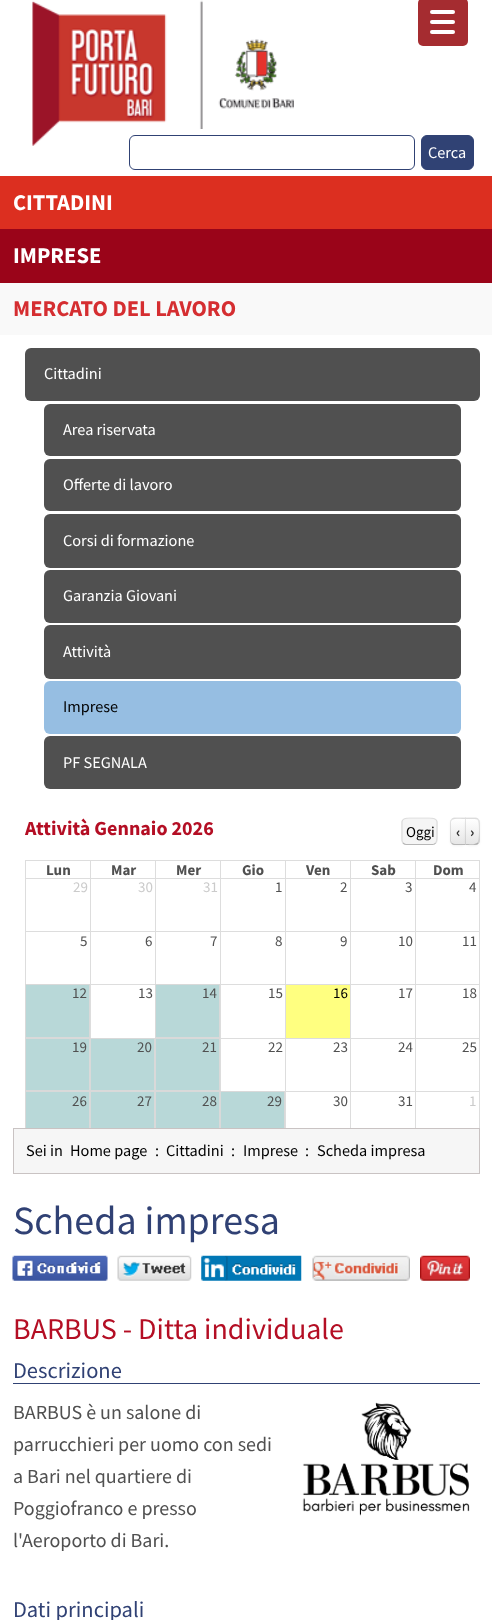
<?xml version="1.0" encoding="UTF-8"?>
<svg xmlns="http://www.w3.org/2000/svg" xmlns:xlink="http://www.w3.org/1999/xlink" width="492" height="1620">
  <defs>
    <clipPath id="clip1"><path d="M 455 818 h 11 v 27 h -11 c -3 0 -5 -2 -5 -5 v -17 c 0 -3 2 -5 5 -5 z" /></clipPath>
    <linearGradient id="g1" gradientUnits="userSpaceOnUse" x1="458" y1="819" x2="458" y2="844"><stop offset="0" stop-color="#ffffff" /><stop offset="1" stop-color="#e6e6e6" /></linearGradient>
    <clipPath id="clip2"><path d="M 465 818 h 10 c 3 0 5 2 5 5 v 17 c 0 3 -2 5 -5 5 h -10 z" /></clipPath>
    <linearGradient id="g2" gradientUnits="userSpaceOnUse" x1="473" y1="819" x2="473" y2="844"><stop offset="0" stop-color="#ffffff" /><stop offset="1" stop-color="#e6e6e6" /></linearGradient>
    <clipPath id="clip3"><rect x="25" y="818" width="455" height="310" /></clipPath>
  </defs>
  <rect width="100%" height="100%" fill="#ffffff" />
  <image x="32" y="0" width="262" height="146" xlink:href="image1.png" />
  <rect x="418" y="-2" width="50" height="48" rx="5" fill="#a52c30" />
  <rect x="430" y="10" width="25" height="4" rx="2" fill="#ffffff" />
  <rect x="430" y="20" width="25" height="4" rx="2" fill="#ffffff" />
  <rect x="430" y="30" width="25" height="4" rx="2" fill="#ffffff" />
  <rect x="199" y="129" width="4" height="17" fill="#ffffff" />
  <rect x="129.5" y="135.5" width="285" height="34" rx="5.5" fill="none" stroke="#304274" />
  <rect x="421.5" y="135.5" width="52" height="34" rx="5.5" fill="#304274" stroke="#304274" />
  <rect y="176" width="492" height="53" fill="#dc2f20" />
  <rect y="229" width="492" height="54" fill="#9a0419" />
  <rect y="283" width="492" height="52" fill="#f9f9f9" />
  <rect x="25" y="348" width="455" height="53" rx="6" fill="#505050" />
  <rect x="44" y="404" width="417" height="52" rx="6" fill="#505050" />
  <rect x="44" y="459" width="417" height="52" rx="6" fill="#505050" />
  <rect x="44" y="514" width="417" height="54" rx="6" fill="#505050" />
  <rect x="44" y="570" width="417" height="53" rx="6" fill="#505050" />
  <rect x="44" y="625" width="417" height="54" rx="6" fill="#505050" />
  <rect x="44" y="681" width="417" height="53" rx="6" fill="#96bee2" />
  <rect x="44" y="736" width="417" height="53" rx="6" fill="#505050" />
  <rect x="401" y="818" width="37" height="27" rx="5" fill="#f5f5f5" />
  <path d="M 435.5 843 c -0.5 1 -2 1.5 -3 1.5 h -26.5 c -1 0 -2 -0.5 -3 -1.5" fill="none" stroke="#000000" stroke-opacity="0.25" stroke-width="1.2" />
  <path d="M 403 843 c -1.5 -1.5 -1 -4 -1 -6 v -15.5 c 1 -4 5.5 -3.5 8.5 -3.5 h 17.5 c 3.5 0 8 -0.5 9 3.5 v 15.5 c 0 2 0 4.5 -1.5 6" fill="none" stroke="#000000" stroke-opacity="0.1" stroke-width="1.2" />
  <rect x="450" y="819" width="16" height="27" rx="5" fill="#000000" fill-opacity="0.05" filter="blur(1px)" />
  <path d="M 455 818 h 11 v 27 h -11 c -3 0 -5 -2 -5 -5 v -17 c 0 -3 2 -5 5 -5 z" fill="#f5f5f5" />
  <g clip-path="url(#clip1)">
    <rect x="450" y="819" width="15" height="25" fill="url(#g1)" />
  </g>
  <path d="M 455 820 h 10 v -1 h -6.5 c -3.5 0 -7.5 -0.5 -7.5 4.5 c 0.5 -2 1.5 -3.5 4 -3.5 z m -3.5 22 c -0.5 -2 -0.5 -5 -0.5 -10 c 0 2.5 -0.5 8 0.5 10 z" fill="#ffffff" fill-rule="evenodd" />
  <path d="M 455 817.5 c -1.5 0 -3 0.5 -3.5 1.5 l 1 1 c 2 -2 9.5 -1 12.5 -1 l 1 -1.5 z" fill="#000000" fill-opacity="0.1" />
  <path d="M 455 845 h 11 l -1 -1 h -10 c -1 0 -2 -0.5 -3 -1 l -0.5 0.5 c 0.5 1 2 1.5 3.5 1.5 z" fill="#000000" fill-opacity="0.25" />
  <path d="M 450 822.5 v 17.5 c 0 1.5 0.5 3 1.5 3.5 l 0.5 -0.5 c -0.5 -1 -1 -2 -1 -3 v -17.5 c 0 -1 0.5 -2 1.5 -2.5 l -1 -1 c -1 1 -1.5 2 -1.5 3.5 z" fill="#000000" fill-opacity="0.1" />
  <rect x="465" y="819" width="15" height="27" rx="5" fill="#000000" fill-opacity="0.05" filter="blur(1px)" />
  <path d="M 465 818 h 10 c 3 0 5 2 5 5 v 17 c 0 3 -2 5 -5 5 h -10 z" fill="#f5f5f5" />
  <g clip-path="url(#clip2)">
    <rect x="465" y="819" width="15" height="25" fill="url(#g2)" />
  </g>
  <path d="M 465 817.5 l 1.5 1.5 c 6.5 0 9.5 -0.5 11 1 l 1 -1 c -0.5 -1 -2 -1.5 -3.5 -1.5 z" fill="#000000" fill-opacity="0.1" />
  <path d="M 480 840 v -17.5 c 0 -1.5 -0.5 -2.5 -1.5 -3.5 l -1 1 c 2 1.5 2 20.5 0 22.5 l 1 1 c 1 -0.5 1.5 -2 1.5 -3.5 z" fill="#000000" fill-opacity="0.1" />
  <path d="M 475 845 c 1.5 0 3 -0.5 3.5 -1.5 l -1 -1 c -1.5 2.5 -9 1.5 -11.5 1.5 l -1 1 z" fill="#000000" fill-opacity="0.25" />
  <path d="M 466 819 h 0.5 l -1.5 -1.5 v 27.5 l 1 -1 z" fill="#000000" fill-opacity="0.1" />
  <rect x="25" y="860" width="390" height="1" fill="#dddddd" />
  <rect x="25" y="878" width="390" height="1" fill="#dddddd" />
  <rect x="25" y="860" width="1" height="71" fill="#dddddd" />
  <rect x="90" y="860" width="1" height="71" fill="#dddddd" />
  <rect x="155" y="860" width="1" height="71" fill="#dddddd" />
  <rect x="220" y="860" width="1" height="71" fill="#dddddd" />
  <rect x="285" y="860" width="1" height="71" fill="#dddddd" />
  <rect x="350" y="860" width="1" height="71" fill="#dddddd" />
  <rect x="415.5" y="860.5" width="64" height="18" fill="none" stroke="#dddddd" />
  <rect x="479" y="879" width="1" height="52" fill="#dddddd" />
  <rect x="415" y="879" width="1" height="52" fill="#dddddd" />
  <rect x="25" y="931" width="455" height="1" fill="#dddddd" />
  <rect x="25" y="931" width="1" height="53" fill="#dddddd" />
  <rect x="90" y="931" width="1" height="53" fill="#dddddd" />
  <rect x="155" y="931" width="1" height="53" fill="#dddddd" />
  <rect x="220" y="931" width="1" height="53" fill="#dddddd" />
  <rect x="285" y="931" width="1" height="53" fill="#dddddd" />
  <rect x="350" y="931" width="1" height="53" fill="#dddddd" />
  <rect x="479" y="931" width="1" height="53" fill="#dddddd" />
  <rect x="415" y="931" width="1" height="53" fill="#dddddd" />
  <rect x="25.5" y="984.5" width="64" height="53" fill="#b8d8d8" stroke="#d9d9d9" />
  <rect x="90" y="984" width="65" height="1" fill="#dddddd" />
  <rect x="90" y="984" width="1" height="54" fill="#dddddd" />
  <rect x="155.5" y="984.5" width="64" height="53" fill="#b8d8d8" stroke="#d9d9d9" />
  <rect x="220" y="984" width="260" height="1" fill="#dddddd" />
  <rect x="220" y="984" width="1" height="54" fill="#dddddd" />
  <rect x="286" y="985" width="64" height="53" fill="#ffff80" />
  <rect x="285" y="984" width="1" height="54" fill="#dddddd" />
  <rect x="350" y="984" width="1" height="54" fill="#dddddd" />
  <rect x="479" y="984" width="1" height="54" fill="#dddddd" />
  <rect x="415" y="984" width="1" height="54" fill="#dddddd" />
  <rect x="25.5" y="1038.5" width="64" height="52" fill="#b8d8d8" stroke="#d9d9d9" />
  <rect x="90.5" y="1038.5" width="64" height="52" fill="#b8d8d8" stroke="#d9d9d9" />
  <rect x="155.5" y="1038.5" width="64" height="52" fill="#b8d8d8" stroke="#d9d9d9" />
  <rect x="220" y="1038" width="260" height="1" fill="#dddddd" />
  <rect x="220" y="1038" width="1" height="53" fill="#dddddd" />
  <rect x="285" y="1038" width="1" height="53" fill="#dddddd" />
  <rect x="350" y="1038" width="1" height="53" fill="#dddddd" />
  <rect x="479" y="1038" width="1" height="53" fill="#dddddd" />
  <rect x="415" y="1038" width="1" height="53" fill="#dddddd" />
  <rect x="26" y="1092" width="63" height="36" fill="#b8d8d8" />
  <rect x="91" y="1092" width="63" height="36" fill="#b8d8d8" />
  <rect x="13.5" y="1128.5" width="466" height="45" fill="#f6f6f6" stroke="#c9c3c3" />
  <g clip-path="url(#clip3)">
    <rect x="90.5" y="1091.5" width="64" height="53" fill="none" stroke="#d9d9d9" />
  </g>
  <rect x="156" y="1092" width="63" height="36" fill="#b8d8d8" />
  <rect x="221" y="1092" width="63" height="36" fill="#b8d8d8" />
  <rect x="285" y="1091" width="195" height="1" fill="#dddddd" />
  <rect x="285" y="1091" width="1" height="37" fill="#dddddd" />
  <rect x="350" y="1091" width="1" height="37" fill="#dddddd" />
  <rect x="479" y="1091" width="1" height="37" fill="#dddddd" />
  <rect x="415" y="1091" width="1" height="37" fill="#dddddd" />
  <image x="12" y="1255" width="96" height="26" xlink:href="image2.png" />
  <image x="117" y="1255" width="75" height="26" xlink:href="image3.png" />
  <image x="201" y="1255" width="101" height="26" xlink:href="image4.png" />
  <image x="312" y="1255" width="98" height="26" xlink:href="image5.png" />
  <image x="420" y="1255" width="50" height="26" xlink:href="image6.png" />
  <rect x="13" y="1383" width="467" height="1" fill="#304274" />
  <image x="302" y="1402" width="168" height="114" xlink:href="image7.png" />
  <text x="428" y="158" style="font-family: Source Sans Pro; font-size: 16.25px; fill: #ffffff">Cerca</text>
  <text x="13" y="210" style="font-family: Source Sans Pro; font-size: 22.5px; font-weight: bold; fill: #ffffff">CITTADINI</text>
  <text x="13" y="263" style="font-family: Source Sans Pro; font-size: 22.5px; font-weight: bold; fill: #ffffff">IMPRESE</text>
  <text x="13" y="316" style="font-family: Source Sans Pro; font-size: 22.5px; font-weight: bold; fill: #d52e31">MERCATO DEL LAVORO</text>
  <text x="44" y="379" style="font-family: Source Sans Pro; font-size: 16.25px; fill: #ffffff">Cittadini</text>
  <text x="63" y="435" style="font-family: Source Sans Pro; font-size: 16.25px; fill: #ffffff">Area riservata</text>
  <text x="63" y="490" style="font-family: Source Sans Pro; font-size: 16.25px; fill: #ffffff">Offerte di lavoro</text>
  <text x="63" y="546" style="font-family: Source Sans Pro; font-size: 16.25px; fill: #ffffff">Corsi di formazione</text>
  <text x="63" y="601" style="font-family: Source Sans Pro; font-size: 16.25px; fill: #ffffff">Garanzia Giovani</text>
  <text x="63" y="657" style="font-family: Source Sans Pro; font-size: 16.25px; fill: #ffffff">Attività</text>
  <text x="63" y="712" style="font-family: Source Sans Pro; font-size: 16.25px; fill: #000000">Imprese</text>
  <text x="63" y="768" style="font-family: Source Sans Pro; font-size: 16.25px; fill: #ffffff">PF SEGNALA</text>
  <text x="25" y="835" style="font-family: Source Sans Pro; font-size: 20px; font-weight: bold; fill: #b40e24">Attività Gennaio 2026</text>
  <text x="406" y="837" style="font-family: Source Sans Pro; font-size: 15px; fill: #000000">Oggi</text>
  <text x="456" y="837" style="font-family: Source Sans Pro; font-size: 15px; font-weight: bold; fill: #333333">‹</text>
  <text x="470" y="837" style="font-family: Source Sans Pro; font-size: 15px; font-weight: bold; fill: #333333">›</text>
  <text x="46" y="875" style="font-family: Source Sans Pro; font-size: 15px; font-weight: bold; fill: #505050">Lun</text>
  <text x="111" y="875" style="font-family: Source Sans Pro; font-size: 15px; font-weight: bold; fill: #505050">Mar</text>
  <text x="176" y="875" style="font-family: Source Sans Pro; font-size: 15px; font-weight: bold; fill: #505050">Mer</text>
  <text x="242" y="875" style="font-family: Source Sans Pro; font-size: 15px; font-weight: bold; fill: #505050">Gio</text>
  <text x="306" y="875" style="font-family: Source Sans Pro; font-size: 15px; font-weight: bold; fill: #505050">Ven</text>
  <text x="371" y="875" style="font-family: Source Sans Pro; font-size: 15px; font-weight: bold; fill: #505050">Sab</text>
  <text x="433" y="875" style="font-family: Source Sans Pro; font-size: 15px; font-weight: bold; fill: #505050">Dom</text>
  <text x="73" y="892" style="font-family: Source Sans Pro; font-size: 15px; fill: #cbcbcb">29</text>
  <text x="138" y="892" style="font-family: Source Sans Pro; font-size: 15px; fill: #cbcbcb">30</text>
  <text x="203" y="892" style="font-family: Source Sans Pro; font-size: 15px; fill: #cbcbcb">31</text>
  <text x="275" y="892" style="font-family: Source Sans Pro; font-size: 15px; fill: #505050">1</text>
  <text x="340" y="892" style="font-family: Source Sans Pro; font-size: 15px; fill: #505050">2</text>
  <text x="405" y="892" style="font-family: Source Sans Pro; font-size: 15px; fill: #505050">3</text>
  <text x="469" y="892" style="font-family: Source Sans Pro; font-size: 15px; fill: #505050">4</text>
  <text x="80" y="946" style="font-family: Source Sans Pro; font-size: 15px; fill: #505050">5</text>
  <text x="145" y="946" style="font-family: Source Sans Pro; font-size: 15px; fill: #505050">6</text>
  <text x="210" y="946" style="font-family: Source Sans Pro; font-size: 15px; fill: #505050">7</text>
  <text x="275" y="946" style="font-family: Source Sans Pro; font-size: 15px; fill: #505050">8</text>
  <text x="340" y="946" style="font-family: Source Sans Pro; font-size: 15px; fill: #505050">9</text>
  <text x="398" y="946" style="font-family: Source Sans Pro; font-size: 15px; fill: #505050">10</text>
  <text x="462" y="946" style="font-family: Source Sans Pro; font-size: 15px; fill: #505050">11</text>
  <text x="72" y="998" style="font-family: Source Sans Pro; font-size: 15px; fill: #505050">12</text>
  <text x="138" y="998" style="font-family: Source Sans Pro; font-size: 15px; fill: #505050">13</text>
  <text x="202" y="998" style="font-family: Source Sans Pro; font-size: 15px; fill: #505050">14</text>
  <text x="268" y="998" style="font-family: Source Sans Pro; font-size: 15px; fill: #505050">15</text>
  <text x="333" y="998" style="font-family: Source Sans Pro; font-size: 15px; fill: #000000">16</text>
  <text x="398" y="998" style="font-family: Source Sans Pro; font-size: 15px; fill: #505050">17</text>
  <text x="462" y="998" style="font-family: Source Sans Pro; font-size: 15px; fill: #505050">18</text>
  <text x="72" y="1052" style="font-family: Source Sans Pro; font-size: 15px; fill: #505050">19</text>
  <text x="137" y="1052" style="font-family: Source Sans Pro; font-size: 15px; fill: #505050">20</text>
  <text x="202" y="1052" style="font-family: Source Sans Pro; font-size: 15px; fill: #505050">21</text>
  <text x="268" y="1052" style="font-family: Source Sans Pro; font-size: 15px; fill: #505050">22</text>
  <text x="333" y="1052" style="font-family: Source Sans Pro; font-size: 15px; fill: #505050">23</text>
  <text x="398" y="1052" style="font-family: Source Sans Pro; font-size: 15px; fill: #505050">24</text>
  <text x="462" y="1052" style="font-family: Source Sans Pro; font-size: 15px; fill: #505050">25</text>
  <text x="137" y="1106" style="font-family: Source Sans Pro; font-size: 15px; fill: #505050">27</text>
  <text x="333" y="1106" style="font-family: Source Sans Pro; font-size: 15px; fill: #505050">30</text>
  <text x="398" y="1106" style="font-family: Source Sans Pro; font-size: 15px; fill: #505050">31</text>
  <text x="469" y="1106" style="font-family: Source Sans Pro; font-size: 15px; fill: #cbcbcb">1</text>
  <text x="26" y="1156" style="font-family: Source Sans Pro; font-size: 16.25px; fill: #000000">Sei in</text>
  <g clip-path="url(#clip3)">
    <rect x="25.5" y="1091.5" width="64" height="53" fill="none" stroke="#d9d9d9" />
  </g>
  <text x="72" y="1106" style="font-family: Source Sans Pro; font-size: 15px; fill: #505050">26</text>
  <text x="70" y="1156" style="font-family: Source Sans Pro; font-size: 16.25px; fill: #000000">Home page</text>
  <text x="155" y="1156" style="font-family: Source Sans Pro; font-size: 16.25px; fill: #000000">:</text>
  <text x="166" y="1156" style="font-family: Source Sans Pro; font-size: 16.25px; fill: #000000">Cittadini</text>
  <g clip-path="url(#clip3)">
    <rect x="220.5" y="1091.5" width="64" height="53" fill="none" stroke="#d9d9d9" />
  </g>
  <text x="267" y="1106" style="font-family: Source Sans Pro; font-size: 15px; fill: #505050">29</text>
  <g clip-path="url(#clip3)">
    <rect x="155.5" y="1091.5" width="64" height="53" fill="none" stroke="#d9d9d9" />
  </g>
  <text x="202" y="1106" style="font-family: Source Sans Pro; font-size: 15px; fill: #505050">28</text>
  <text x="231" y="1156" style="font-family: Source Sans Pro; font-size: 16.25px; fill: #000000">:</text>
  <text x="243" y="1156" style="font-family: Source Sans Pro; font-size: 16.25px; fill: #000000">Imprese</text>
  <text x="305" y="1156" style="font-family: Source Sans Pro; font-size: 16.25px; fill: #000000">:</text>
  <text x="317" y="1156" style="font-family: Source Sans Pro; font-size: 16.25px; fill: #000000">Scheda impresa</text>
  <text x="13" y="1234" style="font-family: Source Sans Pro; font-size: 40px; fill: #304174">Scheda impresa</text>
  <text x="13" y="1339" style="font-family: Source Sans Pro; font-size: 30px; fill: #b40e24">BARBUS - Ditta individuale</text>
  <text x="13" y="1378" style="font-family: Source Sans Pro; font-size: 22.5px; fill: #304174">Descrizione</text>
  <text x="13" y="1419" style="font-family: Source Sans Pro; font-size: 20px; fill: #505050">BARBUS è un salone di</text>
  <text x="13" y="1451" style="font-family: Source Sans Pro; font-size: 20px; fill: #505050">parrucchieri per uomo con sedi</text>
  <text x="13" y="1483" style="font-family: Source Sans Pro; font-size: 20px; fill: #505050">a Bari nel quartiere di</text>
  <text x="13" y="1515" style="font-family: Source Sans Pro; font-size: 20px; fill: #505050">Poggiofranco e presso</text>
  <text x="13" y="1547" style="font-family: Source Sans Pro; font-size: 20px; fill: #505050">l'Aeroporto di Bari.</text>
  <text x="13" y="1617" style="font-family: Source Sans Pro; font-size: 22.5px; fill: #304174">Dati principali</text>
</svg>
